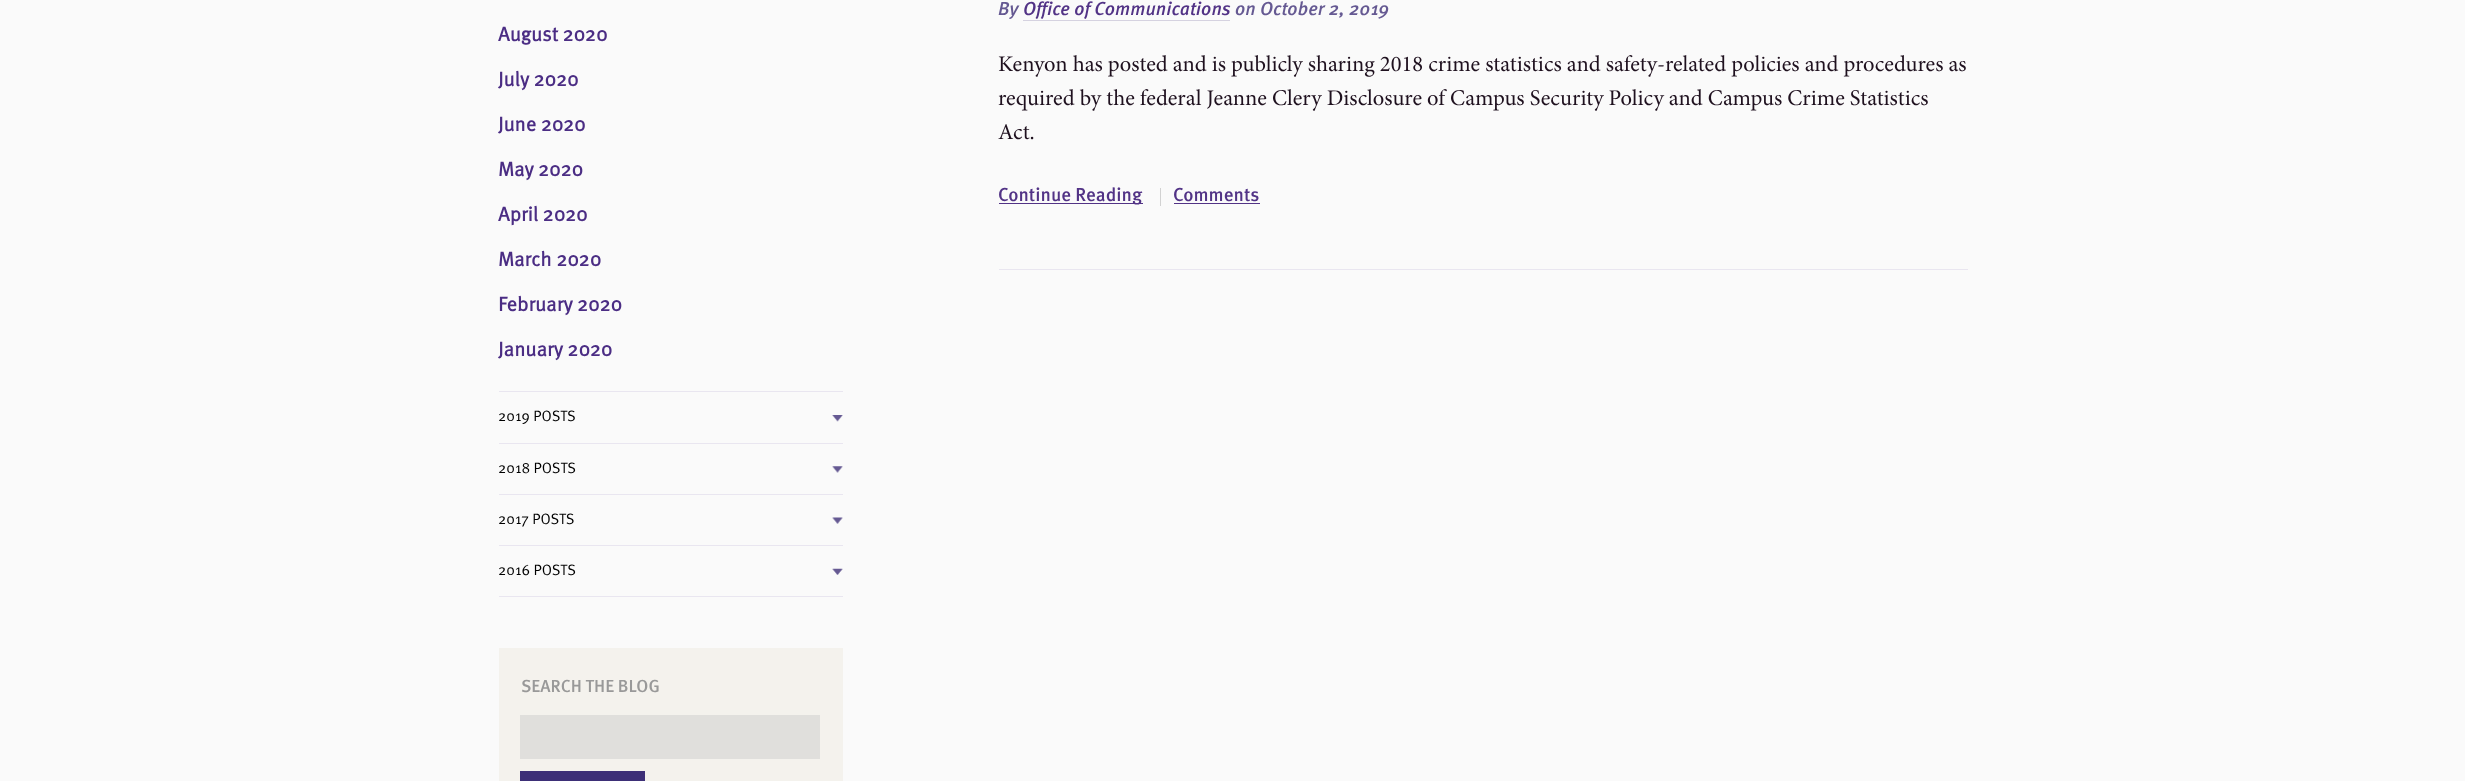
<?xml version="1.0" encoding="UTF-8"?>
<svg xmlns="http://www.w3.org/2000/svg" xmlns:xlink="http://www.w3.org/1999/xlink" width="2465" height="781">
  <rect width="100%" height="100%" fill="#fafafa" />
  <rect x="499" y="391" width="344" height="1" fill="#e9e6f0" />
  <rect x="499" y="443" width="344" height="1" fill="#e9e6f0" />
  <image x="832" y="415" width="11" height="7" xlink:href="image1.png" />
  <rect x="499" y="494" width="344" height="1" fill="#e9e6f0" />
  <image x="832" y="466" width="11" height="7" xlink:href="image2.png" />
  <rect x="499" y="545" width="344" height="1" fill="#e9e6f0" />
  <image x="832" y="517" width="11" height="7" xlink:href="image3.png" />
  <rect x="499" y="596" width="344" height="1" fill="#e9e6f0" />
  <image x="832" y="568" width="11" height="7" xlink:href="image4.png" />
  <rect x="499" y="648" width="344" height="133" fill="#f4f2ed" />
  <rect x="520" y="715" width="300" height="44" fill="#e0dfdc" />
  <rect x="520" y="771" width="125" height="10" fill="#3d2f77" />
  <rect x="999" y="269" width="969" height="1" fill="#e9e6f0" />
  <rect x="1023" y="20" width="207" height="1" fill="#d5d2e0" />
  <rect x="999" y="203" width="144" height="1" fill="#523386" />
  <rect x="1160" y="188" width="1" height="18" fill="#d2d2d2" />
  <rect x="1174" y="203" width="86" height="1" fill="#523386" />
  <text x="498" y="41" style="font-family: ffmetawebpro; font-size: 20px; font-weight: bold; fill: #4b2d84">August 2020</text>
  <text x="498" y="86" style="font-family: ffmetawebpro; font-size: 20px; font-weight: bold; fill: #4b2d84">July 2020</text>
  <text x="498" y="131" style="font-family: ffmetawebpro; font-size: 20px; font-weight: bold; fill: #4b2d84">June 2020</text>
  <text x="498" y="176" style="font-family: ffmetawebpro; font-size: 20px; font-weight: bold; fill: #4b2d84">May 2020</text>
  <text x="498" y="221" style="font-family: ffmetawebpro; font-size: 20px; font-weight: bold; fill: #4b2d84">April 2020</text>
  <text x="498" y="266" style="font-family: ffmetawebpro; font-size: 20px; font-weight: bold; fill: #4b2d84">March 2020</text>
  <text x="498" y="311" style="font-family: ffmetawebpro; font-size: 20px; font-weight: bold; fill: #4b2d84">February 2020</text>
  <text x="498" y="356" style="font-family: ffmetawebpro; font-size: 20px; font-weight: bold; fill: #4b2d84">January 2020</text>
  <text x="498" y="421" style="font-family: ffmetawebpro; font-size: 15px; fill: #000000">2019 POSTS</text>
  <text x="498" y="473" style="font-family: ffmetawebpro; font-size: 15px; fill: #000000">2018 POSTS</text>
  <text x="498" y="524" style="font-family: ffmetawebpro; font-size: 15px; fill: #000000">2017 POSTS</text>
  <text x="498" y="575" style="font-family: ffmetawebpro; font-size: 15px; fill: #000000">2016 POSTS</text>
  <text x="521" y="692" style="font-family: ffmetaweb; font-size: 17.5px; font-weight: 500; fill: #999999">SEARCH THE BLOG</text>
  <text x="998" y="15" style="font-family: ffmetaweb; font-size: 18.75px; font-weight: 500; font-style: italic; fill: #655992">By</text>
  <text x="1023" y="15" style="font-family: ffmetaweb; font-size: 18.75px; font-weight: 500; font-style: italic; fill: #523386">Office of Communications</text>
  <text x="1235" y="15" style="font-family: ffmetaweb; font-size: 18.75px; font-weight: 500; font-style: italic; fill: #655992">on October 2, 2019</text>
  <text x="998" y="71" style="font-family: Minion; font-size: 22.5px; fill: #1f111f">Kenyon has posted and is publicly sharing 2018 crime statistics and safety-related policies and procedures as</text>
  <text x="998" y="105" style="font-family: Minion; font-size: 22.5px; fill: #1f111f">required by the federal Jeanne Clery Disclosure of Campus Security Policy and Campus Crime Statistics</text>
  <text x="998" y="139" style="font-family: Minion; font-size: 22.5px; fill: #1f111f">Act.</text>
  <text x="998" y="201" style="font-family: ffmetaweb; font-size: 18.75px; font-weight: 500; fill: #523386">Continue Reading</text>
  <text x="1173" y="201" style="font-family: ffmetaweb; font-size: 18.75px; font-weight: 500; fill: #523386">Comments</text>
</svg>
